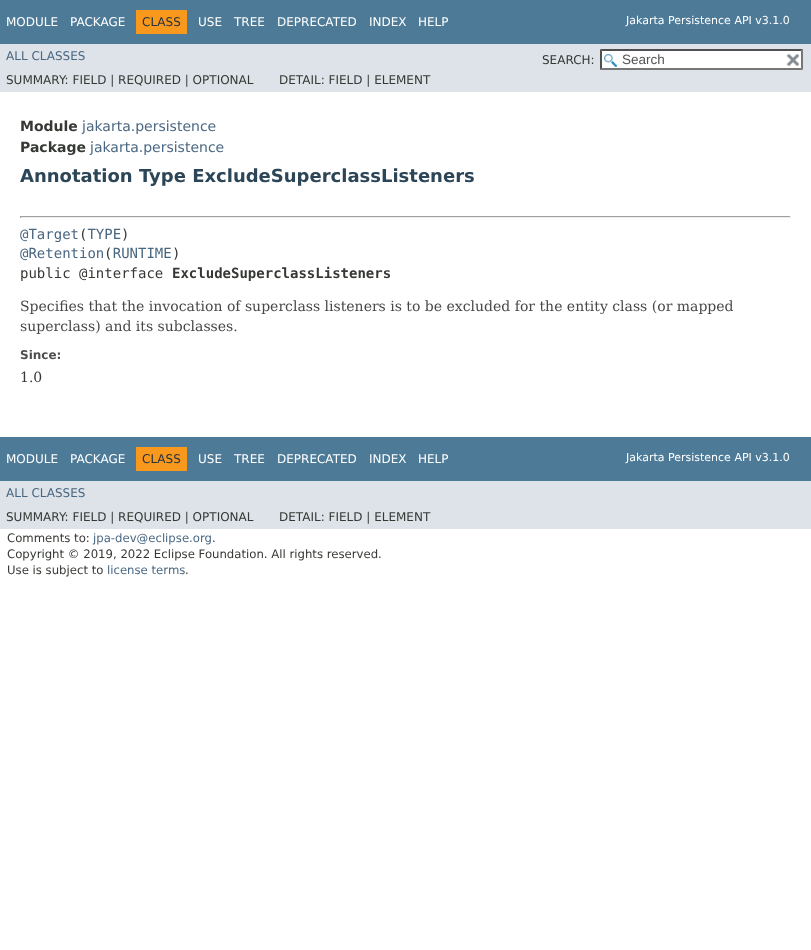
<?xml version="1.0" encoding="UTF-8"?>
<svg xmlns="http://www.w3.org/2000/svg" xmlns:xlink="http://www.w3.org/1999/xlink" width="811" height="950">
  <rect width="100%" height="100%" fill="#ffffff" />
  <rect width="811" height="44" fill="#4d7a97" />
  <rect x="136" y="10" width="51" height="24" fill="#f8981d" />
  <rect y="44" width="811" height="48" fill="#dee3e9" />
  <rect x="600" y="49" width="203" height="21" fill="#ffffff" />
  <image x="604" y="54" width="13" height="13" xlink:href="image1.png" />
  <path d="M 600 49 h 203 l -2 2 h -199 z" fill="#4f4f4f" />
  <path d="M 803 49 v 21 l -2 -2 v -17 z" fill="#767676" />
  <path d="M 803 70 h -203 l 2 -2 h 199 z" fill="#767676" />
  <path d="M 600 70 v -21 l 2 2 v 17 z" fill="#4f4f4f" />
  <image x="786" y="54" width="14" height="12" xlink:href="image2.png" />
  <rect x="20" y="216" width="771" height="1" fill="#9f9f9f" />
  <rect x="790" y="216" width="1" height="2" fill="#eeeeee" />
  <rect x="20" y="217" width="771" height="1" fill="#eeeeee" />
  <rect x="20" y="216" width="1" height="2" fill="#9f9f9f" />
  <rect y="437" width="811" height="44" fill="#4d7a97" />
  <rect x="136" y="447" width="51" height="24" fill="#f8981d" />
  <rect y="481" width="811" height="48" fill="#dee3e9" />
  <text x="6" y="26" style="font-family: DejaVu Sans; font-size: 12px; fill: #ffffff">MODULE</text>
  <text x="70" y="26" style="font-family: DejaVu Sans; font-size: 12px; fill: #ffffff">PACKAGE</text>
  <text x="142" y="26" style="font-family: DejaVu Sans; font-size: 12px; fill: #253441">CLASS</text>
  <text x="198" y="26" style="font-family: DejaVu Sans; font-size: 12px; fill: #ffffff">USE</text>
  <text x="234" y="26" style="font-family: DejaVu Sans; font-size: 12px; fill: #ffffff">TREE</text>
  <text x="277" y="26" style="font-family: DejaVu Sans; font-size: 12px; fill: #ffffff">DEPRECATED</text>
  <text x="369" y="26" style="font-family: DejaVu Sans; font-size: 12px; fill: #ffffff">INDEX</text>
  <text x="418" y="26" style="font-family: DejaVu Sans; font-size: 12px; fill: #ffffff">HELP</text>
  <text x="626" y="24" style="font-family: DejaVu Sans; font-size: 11px; fill: #ffffff">Jakarta Persistence API v3.1.0</text>
  <text x="6" y="60" style="font-family: DejaVu Sans; font-size: 12px; fill: #4a6782">ALL CLASSES</text>
  <text x="542" y="64" style="font-family: DejaVu Sans; font-size: 12px; fill: #353833">SEARCH:</text>
  <text x="622" y="64" style="font-family: Liberation Sans; font-size: 13.5px; fill: #545454">Search</text>
  <text x="6" y="84" style="font-family: DejaVu Sans; font-size: 12px; fill: #353833">SUMMARY: FIELD | REQUIRED | OPTIONAL</text>
  <text x="279" y="84" style="font-family: DejaVu Sans; font-size: 12px; fill: #353833">DETAIL: FIELD | ELEMENT</text>
  <text x="20" y="131" style="font-family: DejaVu Sans; font-size: 14px; font-weight: bold; fill: #353833">Module</text>
  <text x="82" y="131" style="font-family: DejaVu Sans; font-size: 14px; fill: #4a6782">jakarta.persistence</text>
  <text x="20" y="152" style="font-family: DejaVu Sans; font-size: 14px; font-weight: bold; fill: #353833">Package</text>
  <text x="90" y="152" style="font-family: DejaVu Sans; font-size: 14px; fill: #4a6782">jakarta.persistence</text>
  <text x="20" y="182" style="font-family: DejaVu Sans; font-size: 18px; font-weight: bold; fill: #2c4557">Annotation Type ExcludeSuperclassListeners</text>
  <text x="20" y="239" style="font-family: DejaVu Sans Mono; font-size: 14px; fill: #4a6782">@Target TYPE</text>
  <text x="79" y="239" style="font-family: DejaVu Sans Mono; font-size: 14px; fill: #353833">(</text>
  <text x="121" y="239" style="font-family: DejaVu Sans Mono; font-size: 14px; fill: #353833">)</text>
  <text x="20" y="258" style="font-family: DejaVu Sans Mono; font-size: 14px; fill: #4a6782">@Retention RUNTIME</text>
  <text x="104" y="258" style="font-family: DejaVu Sans Mono; font-size: 14px; fill: #353833">(</text>
  <text x="172" y="258" style="font-family: DejaVu Sans Mono; font-size: 14px; fill: #353833">)</text>
  <text x="20" y="278" style="font-family: DejaVu Sans Mono; font-size: 14px; fill: #353833">public @interface</text>
  <text x="172" y="278" style="font-family: DejaVu Sans Mono; font-size: 14px; font-weight: bold; fill: #353833">ExcludeSuperclassListeners</text>
  <text x="20" y="311" style="font-family: DejaVu Serif; font-size: 14px; fill: #474747">Specifies that the invocation of superclass listeners is to be excluded for the entity class (or mapped</text>
  <text x="20" y="331" style="font-family: DejaVu Serif; font-size: 14px; fill: #474747">superclass) and its subclasses.</text>
  <text x="20" y="359" style="font-family: DejaVu Sans; font-size: 12px; font-weight: bold; fill: #4e4e4e">Since:</text>
  <text x="20" y="382" style="font-family: DejaVu Serif; font-size: 14px; fill: #353833">1.0</text>
  <text x="6" y="463" style="font-family: DejaVu Sans; font-size: 12px; fill: #ffffff">MODULE</text>
  <text x="70" y="463" style="font-family: DejaVu Sans; font-size: 12px; fill: #ffffff">PACKAGE</text>
  <text x="142" y="463" style="font-family: DejaVu Sans; font-size: 12px; fill: #253441">CLASS</text>
  <text x="198" y="463" style="font-family: DejaVu Sans; font-size: 12px; fill: #ffffff">USE</text>
  <text x="234" y="463" style="font-family: DejaVu Sans; font-size: 12px; fill: #ffffff">TREE</text>
  <text x="277" y="463" style="font-family: DejaVu Sans; font-size: 12px; fill: #ffffff">DEPRECATED</text>
  <text x="369" y="463" style="font-family: DejaVu Sans; font-size: 12px; fill: #ffffff">INDEX</text>
  <text x="418" y="463" style="font-family: DejaVu Sans; font-size: 12px; fill: #ffffff">HELP</text>
  <text x="626" y="461" style="font-family: DejaVu Sans; font-size: 11px; fill: #ffffff">Jakarta Persistence API v3.1.0</text>
  <text x="6" y="497" style="font-family: DejaVu Sans; font-size: 12px; fill: #4a6782">ALL CLASSES</text>
  <text x="6" y="521" style="font-family: DejaVu Sans; font-size: 12px; fill: #353833">SUMMARY: FIELD | REQUIRED | OPTIONAL</text>
  <text x="279" y="521" style="font-family: DejaVu Sans; font-size: 12px; fill: #353833">DETAIL: FIELD | ELEMENT</text>
  <text x="7" y="542" style="font-family: DejaVu Sans; font-size: 11.7px; fill: #353833">Comments to:</text>
  <text x="93" y="542" style="font-family: DejaVu Sans; font-size: 11.7px; fill: #4a6782">jpa-dev@eclipse.org</text>
  <text x="212" y="542" style="font-family: DejaVu Sans; font-size: 11.7px; fill: #353833">.</text>
  <text x="7" y="558" style="font-family: DejaVu Sans; font-size: 11.7px; fill: #353833">Copyright © 2019, 2022 Eclipse Foundation. All rights reserved.</text>
  <text x="7" y="574" style="font-family: DejaVu Sans; font-size: 11.7px; fill: #353833">Use is subject to</text>
  <text x="107" y="574" style="font-family: DejaVu Sans; font-size: 11.7px; fill: #4a6782">license terms</text>
  <text x="185" y="574" style="font-family: DejaVu Sans; font-size: 11.7px; fill: #353833">.</text>
</svg>
